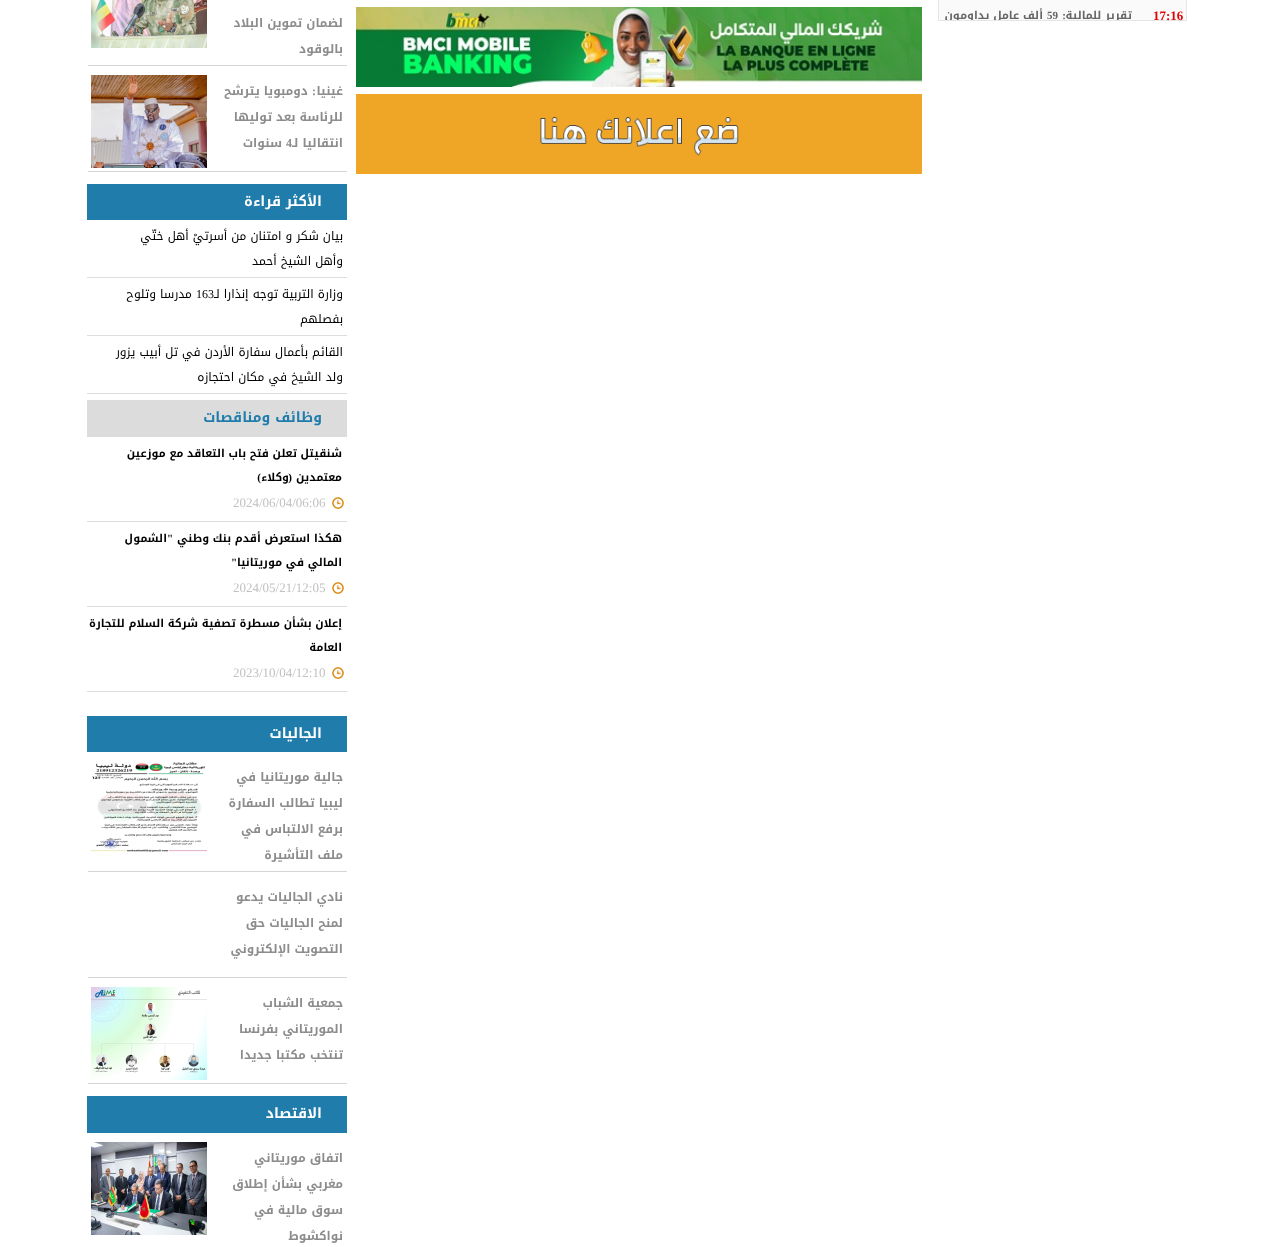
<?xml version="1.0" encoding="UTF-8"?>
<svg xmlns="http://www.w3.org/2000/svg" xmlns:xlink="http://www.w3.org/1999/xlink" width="1274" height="1247">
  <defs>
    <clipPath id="clip1"><rect x="939" width="247" height="20" /></clipPath>
  </defs>
  <rect width="100%" height="100%" fill="#ffffff" />
  <rect x="938.5" y="-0.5" width="248" height="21" fill="#fafafa" stroke="#e6e6e6" />
  <image x="356" y="7" width="566" height="80" xlink:href="image1.png" />
  <image x="356" y="94" width="566" height="80" xlink:href="image2.png" />
  <rect x="88" y="65" width="259" height="1" fill="#d5d5d5" />
  <image x="91" y="0" width="116" height="48" xlink:href="image3.png" />
  <rect x="88" y="171" width="259" height="1" fill="#d5d5d5" />
  <image x="91" y="75" width="116" height="93" xlink:href="image4.png" />
  <rect x="87" y="184" width="260" height="36" fill="#1f7cab" />
  <rect x="87" y="277" width="260" height="1" fill="#dddddd" />
  <rect x="87" y="335" width="260" height="1" fill="#dddddd" />
  <rect x="87" y="393" width="260" height="1" fill="#dddddd" />
  <rect x="87" y="400" width="260" height="37" fill="#dcdcdc" />
  <rect x="87" y="521" width="260" height="1" fill="#dddddd" />
  <image x="332" y="497" width="12" height="12" xlink:href="image5.png" />
  <rect x="87" y="606" width="260" height="1" fill="#dddddd" />
  <image x="332" y="582" width="12" height="12" xlink:href="image5.png" />
  <rect x="87" y="691" width="260" height="1" fill="#dddddd" />
  <image x="332" y="667" width="12" height="12" xlink:href="image5.png" />
  <rect x="87" y="716" width="260" height="36" fill="#1f7cab" />
  <rect x="88" y="871" width="259" height="1" fill="#d5d5d5" />
  <image x="91" y="762" width="116" height="90" xlink:href="image6.png" />
  <rect x="88" y="977" width="259" height="1" fill="#d5d5d5" />
  <rect x="88" y="1083" width="259" height="1" fill="#d5d5d5" />
  <image x="91" y="987" width="116" height="93" xlink:href="image7.png" />
  <rect x="87" y="1096" width="260" height="37" fill="#1f7cab" />
  <image x="91" y="1142" width="116" height="93" xlink:href="image8.png" />
  <text x="1153" y="20" style="font-family: Liberation Serif; font-size: 13px; font-weight: bold; fill: #e00606">17:16</text>
  <g clip-path="url(#clip1)">
    <text x="1132" y="19" style="font-family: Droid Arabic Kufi; font-size: 11px; font-weight: bold; direction: rtl; fill: #656565">تقرير للمالية</text>
  </g>
  <text x="1066" y="19" style="font-family: Liberation Serif; font-size: 11px; font-weight: bold; direction: rtl; fill: #656565">:</text>
  <text x="1047" y="19" style="font-family: Liberation Serif; font-size: 11px; font-weight: bold; fill: #656565">59</text>
  <g clip-path="url(#clip1)">
    <text x="1043" y="19" style="font-family: Droid Arabic Kufi; font-size: 11px; font-weight: bold; direction: rtl; fill: #656565">ألف عامل يداومون</text>
  </g>
  <text x="343" y="27" style="font-family: Droid Arabic Kufi; font-size: 12px; font-weight: bold; direction: rtl; fill: #8c8c8c">لضمان تموين البلاد</text>
  <text x="343" y="53" style="font-family: Droid Arabic Kufi; font-size: 12px; font-weight: bold; direction: rtl; fill: #8c8c8c">بالوقود</text>
  <text x="343" y="95" style="font-family: Droid Arabic Kufi; font-size: 12px; font-weight: bold; direction: rtl; fill: #8c8c8c">غينيا</text>
  <text x="316" y="95" style="font-family: Liberation Serif; font-size: 12px; font-weight: bold; direction: rtl; fill: #8c8c8c">:</text>
  <text x="308" y="95" style="font-family: Droid Arabic Kufi; font-size: 12px; font-weight: bold; direction: rtl; fill: #8c8c8c">دومبويا يترشح</text>
  <text x="343" y="121" style="font-family: Droid Arabic Kufi; font-size: 12px; font-weight: bold; direction: rtl; fill: #8c8c8c">للرئاسة بعد توليها</text>
  <text x="286" y="147" style="font-family: Liberation Serif; font-size: 12px; font-weight: bold; fill: #8c8c8c">4</text>
  <text x="343" y="147" style="font-family: Droid Arabic Kufi; font-size: 12px; font-weight: bold; direction: rtl; fill: #8c8c8c">انتقاليا لـ</text>
  <text x="282" y="147" style="font-family: Droid Arabic Kufi; font-size: 12px; font-weight: bold; direction: rtl; fill: #8c8c8c">سنوات</text>
  <text x="322" y="206" style="font-family: Droid Arabic Kufi; font-size: 14px; font-weight: bold; direction: rtl; fill: #ffffff">الأكثر قراءة</text>
  <text x="343" y="240" style="font-family: Droid Arabic Kufi; font-size: 12px; direction: rtl; fill: #000000">بيان شكر و امتنان من أسرتيْ أهل ختّي</text>
  <text x="343" y="265" style="font-family: Droid Arabic Kufi; font-size: 12px; direction: rtl; fill: #000000">وأهل الشيخ أحمد</text>
  <text x="196" y="298" style="font-family: Liberation Serif; font-size: 12px; fill: #000000">163</text>
  <text x="343" y="298" style="font-family: Droid Arabic Kufi; font-size: 12px; direction: rtl; fill: #000000">وزارة التربية توجه إنذارا لـ</text>
  <text x="192" y="298" style="font-family: Droid Arabic Kufi; font-size: 12px; direction: rtl; fill: #000000">مدرسا وتلوح</text>
  <text x="343" y="323" style="font-family: Droid Arabic Kufi; font-size: 12px; direction: rtl; fill: #000000">بفصلهم</text>
  <text x="343" y="356" style="font-family: Droid Arabic Kufi; font-size: 12px; direction: rtl; fill: #000000">القائم بأعمال سفارة الأردن في تل أبيب يزور</text>
  <text x="343" y="381" style="font-family: Droid Arabic Kufi; font-size: 12px; direction: rtl; fill: #000000">ولد الشيخ في مكان احتجازه</text>
  <text x="322" y="422" style="font-family: Droid Arabic Kufi; font-size: 14px; font-weight: bold; direction: rtl; fill: #1f7cab">وظائف ومناقصات</text>
  <text x="342" y="457" style="font-family: Droid Arabic Kufi; font-size: 11px; font-weight: bold; direction: rtl; fill: #000000">شنقيتل تعلن فتح باب التعاقد مع موزعين</text>
  <text x="342" y="481" style="font-family: Droid Arabic Kufi; font-size: 11px; font-weight: bold; direction: rtl; fill: #000000">معتمدين</text>
  <text x="292" y="481" style="font-family: Liberation Serif; font-size: 11px; font-weight: bold; direction: rtl; fill: #000000">(</text>
  <text x="289" y="481" style="font-family: Droid Arabic Kufi; font-size: 11px; font-weight: bold; direction: rtl; fill: #000000">وكلاء</text>
  <text x="261" y="481" style="font-family: Liberation Serif; font-size: 11px; font-weight: bold; direction: rtl; fill: #000000">)</text>
  <text x="233" y="507" style="font-family: Liberation Serif; font-size: 13px; fill: #c1c1c1">2024/06/04/06:06</text>
  <text x="342" y="542" style="font-family: Droid Arabic Kufi; font-size: 11px; font-weight: bold; direction: rtl; fill: #000000">هكذا استعرض أقدم بنك وطني</text>
  <text x="173" y="542" style="font-family: Liberation Serif; font-size: 11px; font-weight: bold; direction: rtl; fill: #000000">"</text>
  <text x="167" y="542" style="font-family: Droid Arabic Kufi; font-size: 11px; font-weight: bold; direction: rtl; fill: #000000">الشمول</text>
  <text x="342" y="566" style="font-family: Droid Arabic Kufi; font-size: 11px; font-weight: bold; direction: rtl; fill: #000000">المالي في موريتانيا</text>
  <text x="237" y="566" style="font-family: Liberation Serif; font-size: 11px; font-weight: bold; direction: rtl; fill: #000000">"</text>
  <text x="233" y="592" style="font-family: Liberation Serif; font-size: 13px; fill: #c1c1c1">2024/05/21/12:05</text>
  <text x="342" y="627" style="font-family: Droid Arabic Kufi; font-size: 11px; font-weight: bold; direction: rtl; fill: #000000">إعلان بشأن مسطرة تصفية شركة السلام للتجارة</text>
  <text x="342" y="651" style="font-family: Droid Arabic Kufi; font-size: 11px; font-weight: bold; direction: rtl; fill: #000000">العامة</text>
  <text x="233" y="677" style="font-family: Liberation Serif; font-size: 13px; fill: #c1c1c1">2023/10/04/12:10</text>
  <text x="322" y="738" style="font-family: Droid Arabic Kufi; font-size: 14px; font-weight: bold; direction: rtl; fill: #ffffff">الجاليات</text>
  <text x="343" y="781" style="font-family: Droid Arabic Kufi; font-size: 12px; font-weight: bold; direction: rtl; fill: #8c8c8c">جالية موريتانيا في</text>
  <text x="343" y="807" style="font-family: Droid Arabic Kufi; font-size: 12px; font-weight: bold; direction: rtl; fill: #8c8c8c">ليبيا تطالب السفارة</text>
  <text x="343" y="833" style="font-family: Droid Arabic Kufi; font-size: 12px; font-weight: bold; direction: rtl; fill: #8c8c8c">برفع الالتباس في</text>
  <text x="343" y="859" style="font-family: Droid Arabic Kufi; font-size: 12px; font-weight: bold; direction: rtl; fill: #8c8c8c">ملف التأشيرة</text>
  <text x="343" y="901" style="font-family: Droid Arabic Kufi; font-size: 12px; font-weight: bold; direction: rtl; fill: #8c8c8c">نادي الجاليات يدعو</text>
  <text x="343" y="927" style="font-family: Droid Arabic Kufi; font-size: 12px; font-weight: bold; direction: rtl; fill: #8c8c8c">لمنح الجاليات حق</text>
  <text x="343" y="953" style="font-family: Droid Arabic Kufi; font-size: 12px; font-weight: bold; direction: rtl; fill: #8c8c8c">التصويت الإلكتروني</text>
  <text x="343" y="1007" style="font-family: Droid Arabic Kufi; font-size: 12px; font-weight: bold; direction: rtl; fill: #8c8c8c">جمعية الشباب</text>
  <text x="343" y="1033" style="font-family: Droid Arabic Kufi; font-size: 12px; font-weight: bold; direction: rtl; fill: #8c8c8c">الموريتاني بفرنسا</text>
  <text x="343" y="1059" style="font-family: Droid Arabic Kufi; font-size: 12px; font-weight: bold; direction: rtl; fill: #8c8c8c">تنتخب مكتبا جديدا</text>
  <text x="322" y="1118" style="font-family: Droid Arabic Kufi; font-size: 14px; font-weight: bold; direction: rtl; fill: #ffffff">الاقتصاد</text>
  <text x="343" y="1162" style="font-family: Droid Arabic Kufi; font-size: 12px; font-weight: bold; direction: rtl; fill: #8c8c8c">اتفاق موريتاني</text>
  <text x="343" y="1188" style="font-family: Droid Arabic Kufi; font-size: 12px; font-weight: bold; direction: rtl; fill: #8c8c8c">مغربي بشأن إطلاق</text>
  <text x="343" y="1214" style="font-family: Droid Arabic Kufi; font-size: 12px; font-weight: bold; direction: rtl; fill: #8c8c8c">سوق مالية في</text>
  <text x="343" y="1240" style="font-family: Droid Arabic Kufi; font-size: 12px; font-weight: bold; direction: rtl; fill: #8c8c8c">نواكشوط</text>
</svg>
